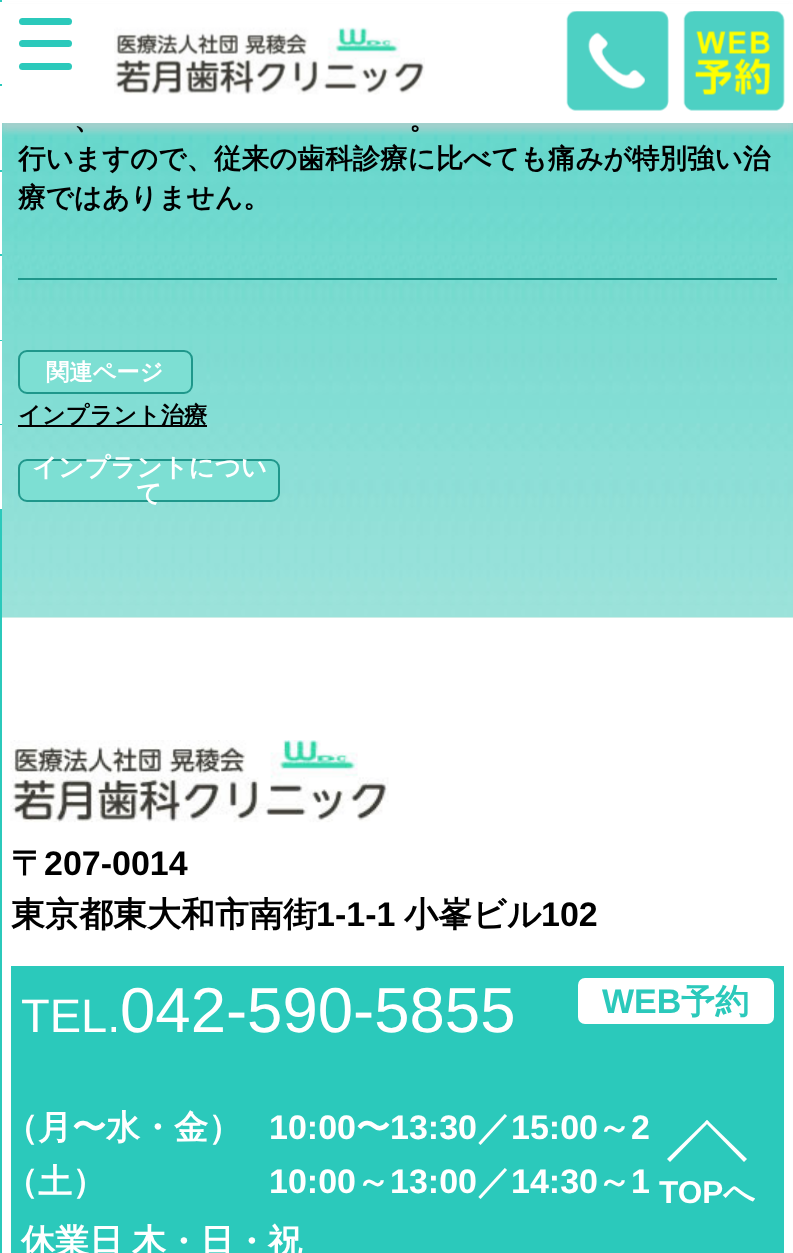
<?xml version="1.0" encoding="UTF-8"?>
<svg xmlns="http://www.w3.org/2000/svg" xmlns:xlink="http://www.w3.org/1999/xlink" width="793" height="1253">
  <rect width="100%" height="100%" fill="#ffffff" />
  <rect x="2" y="617" width="791" height="1" fill="#fef8f4" />
  <image x="2" y="123" width="791" height="495" xlink:href="image4.png" />
  <rect y="9" width="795" height="122" fill="#cccccc" fill-opacity="0.6" filter="blur(3.5px)" />
  <rect x="2" y="4" width="791" height="119" fill="#ffffff" />
  <rect width="2" height="1253" fill="#2bc9bb" />
  <rect y="2" width="2" height="82" fill="#ffffff" />
  <rect y="86" width="2" height="84" fill="#ffffff" />
  <rect y="172" width="2" height="82" fill="#ffffff" />
  <rect y="256" width="2" height="84" fill="#ffffff" />
  <rect y="341" width="2" height="83" fill="#ffffff" />
  <rect y="425" width="2" height="84" fill="#ffffff" />
  <rect x="19" y="18" width="53" height="7" rx="3.5" fill="#2bc9bb" />
  <rect x="19" y="40" width="53" height="7" rx="3.5" fill="#2bc9bb" />
  <rect x="19" y="63" width="53" height="7" rx="3.5" fill="#2bc9bb" />
  <image x="114" y="27" width="311" height="68" xlink:href="image1.png" />
  <image x="566" y="11" width="103" height="100" xlink:href="image2.png" />
  <image x="683" y="11" width="102" height="100" xlink:href="image3.png" />
  <rect x="18" y="278" width="759" height="2" fill="#1f978b" />
  <rect x="19" y="351" width="173" height="42" rx="8" fill="#7ddfd3" stroke="#1f978b" stroke-width="2" />
  <rect x="18" y="425" width="189" height="2" fill="#000000" />
  <rect x="19" y="460" width="260" height="41" rx="8" fill="#7ddfd3" stroke="#1f978b" stroke-width="2" />
  <image x="10" y="740" width="379" height="83" xlink:href="image5.png" />
  <rect x="11" y="966" width="773" height="287" fill="#2bc9bb" />
  <rect x="578" y="978" width="196" height="46" rx="7" fill="#ffffff" />
  <path d="M 667 1159 l 40 -39 l 2 2 l -39 40 z" fill="#ffffff" />
  <path d="M 705 1122 l 2 -2 l 40 39 l -3 3 z" fill="#ffffff" />
  <text x="74" y="129" style="font-family: WenQuanYi Zen Hei; font-size: 27.55px; font-weight: bold; fill: #000000">、</text>
  <text x="409" y="129" style="font-family: WenQuanYi Zen Hei; font-size: 27.55px; font-weight: bold; fill: #000000">。</text>
  <text x="18" y="168" style="font-family: WenQuanYi Zen Hei; font-size: 27.55px; font-weight: bold; fill: #000000">行いますので、従来の歯科診療に比べても痛みが特別強い治</text>
  <text x="18" y="207" style="font-family: WenQuanYi Zen Hei; font-size: 27.55px; font-weight: bold; fill: #000000">療ではありません。</text>
  <text x="46" y="380" style="font-family: WenQuanYi Zen Hei; font-size: 23.25px; font-weight: bold; fill: #ffffff">関連ページ</text>
  <text x="18" y="423" style="font-family: WenQuanYi Zen Hei; font-size: 23.25px; font-weight: bold; fill: #000000">インプラント治療</text>
  <text x="32" y="476" style="font-family: WenQuanYi Zen Hei; font-size: 25.5px; font-weight: bold; fill: #ffffff">インプラントについ</text>
  <text x="136" y="502" style="font-family: WenQuanYi Zen Hei; font-size: 25.5px; font-weight: bold; fill: #ffffff">て</text>
  <text x="11" y="875" style="font-family: WenQuanYi Zen Hei; font-size: 34px; font-weight: bold; fill: #000000">〒</text>
  <text x="44" y="875" style="font-family: Liberation Sans; font-size: 34px; font-weight: bold; fill: #000000">207-0014</text>
  <text x="11" y="926" style="font-family: WenQuanYi Zen Hei; font-size: 34px; font-weight: bold; fill: #000000">東京都東大和市南街</text>
  <text x="316" y="926" style="font-family: Liberation Sans; font-size: 34px; font-weight: bold; fill: #000000">1-1-1</text>
  <text x="404" y="926" style="font-family: WenQuanYi Zen Hei; font-size: 34px; font-weight: bold; fill: #000000">小峯ビル</text>
  <text x="541" y="926" style="font-family: Liberation Sans; font-size: 34px; font-weight: bold; fill: #000000">102</text>
  <text x="21" y="1032" style="font-family: Liberation Sans; font-size: 47px; fill: #ffffff">TEL.</text>
  <text x="120" y="1032" style="font-family: Liberation Sans; font-size: 63.5px; fill: #ffffff">042-590-5855</text>
  <text x="602" y="1013" style="font-family: Liberation Sans; font-size: 34px; font-weight: bold; fill: #2bc9bb">WEB</text>
  <text x="681" y="1013" style="font-family: WenQuanYi Zen Hei; font-size: 34px; font-weight: bold; fill: #2bc9bb">予約</text>
  <text x="4" y="1139" style="font-family: WenQuanYi Zen Hei; font-size: 34px; font-weight: bold; fill: #ffffff">（月〜水・金）</text>
  <text x="269" y="1139" style="font-family: Liberation Sans; font-size: 34px; font-weight: bold; fill: #ffffff">10:00</text>
  <text x="356" y="1139" style="font-family: WenQuanYi Zen Hei; font-size: 34px; font-weight: bold; fill: #ffffff">〜</text>
  <text x="390" y="1139" style="font-family: Liberation Sans; font-size: 34px; font-weight: bold; fill: #ffffff">13:30</text>
  <text x="477" y="1139" style="font-family: WenQuanYi Zen Hei; font-size: 34px; font-weight: bold; fill: #ffffff">／</text>
  <text x="511" y="1139" style="font-family: Liberation Sans; font-size: 34px; font-weight: bold; fill: #ffffff">15:00</text>
  <text x="597" y="1139" style="font-family: WenQuanYi Zen Hei; font-size: 34px; font-weight: bold; fill: #ffffff">～</text>
  <text x="631" y="1139" style="font-family: Liberation Sans; font-size: 34px; font-weight: bold; fill: #ffffff">2</text>
  <text x="4" y="1193" style="font-family: WenQuanYi Zen Hei; font-size: 34px; font-weight: bold; fill: #ffffff">（土）</text>
  <text x="269" y="1193" style="font-family: Liberation Sans; font-size: 34px; font-weight: bold; fill: #ffffff">10:00</text>
  <text x="356" y="1193" style="font-family: WenQuanYi Zen Hei; font-size: 34px; font-weight: bold; fill: #ffffff">～</text>
  <text x="390" y="1193" style="font-family: Liberation Sans; font-size: 34px; font-weight: bold; fill: #ffffff">13:00</text>
  <text x="477" y="1193" style="font-family: WenQuanYi Zen Hei; font-size: 34px; font-weight: bold; fill: #ffffff">／</text>
  <text x="511" y="1193" style="font-family: Liberation Sans; font-size: 34px; font-weight: bold; fill: #ffffff">14:30</text>
  <text x="597" y="1193" style="font-family: WenQuanYi Zen Hei; font-size: 34px; font-weight: bold; fill: #ffffff">～</text>
  <text x="631" y="1193" style="font-family: Liberation Sans; font-size: 34px; font-weight: bold; fill: #ffffff">1</text>
  <text x="21" y="1253" style="font-family: WenQuanYi Zen Hei; font-size: 34px; font-weight: bold; fill: #ffffff">休業日</text>
  <text x="132" y="1253" style="font-family: WenQuanYi Zen Hei; font-size: 34px; font-weight: bold; fill: #ffffff">木・日・祝</text>
  <text x="659" y="1203" style="font-family: Liberation Sans; font-size: 31.5px; font-weight: bold; fill: #ffffff">TOP</text>
  <text x="723" y="1203" style="font-family: WenQuanYi Zen Hei; font-size: 31.5px; font-weight: bold; fill: #ffffff">へ</text>
</svg>
